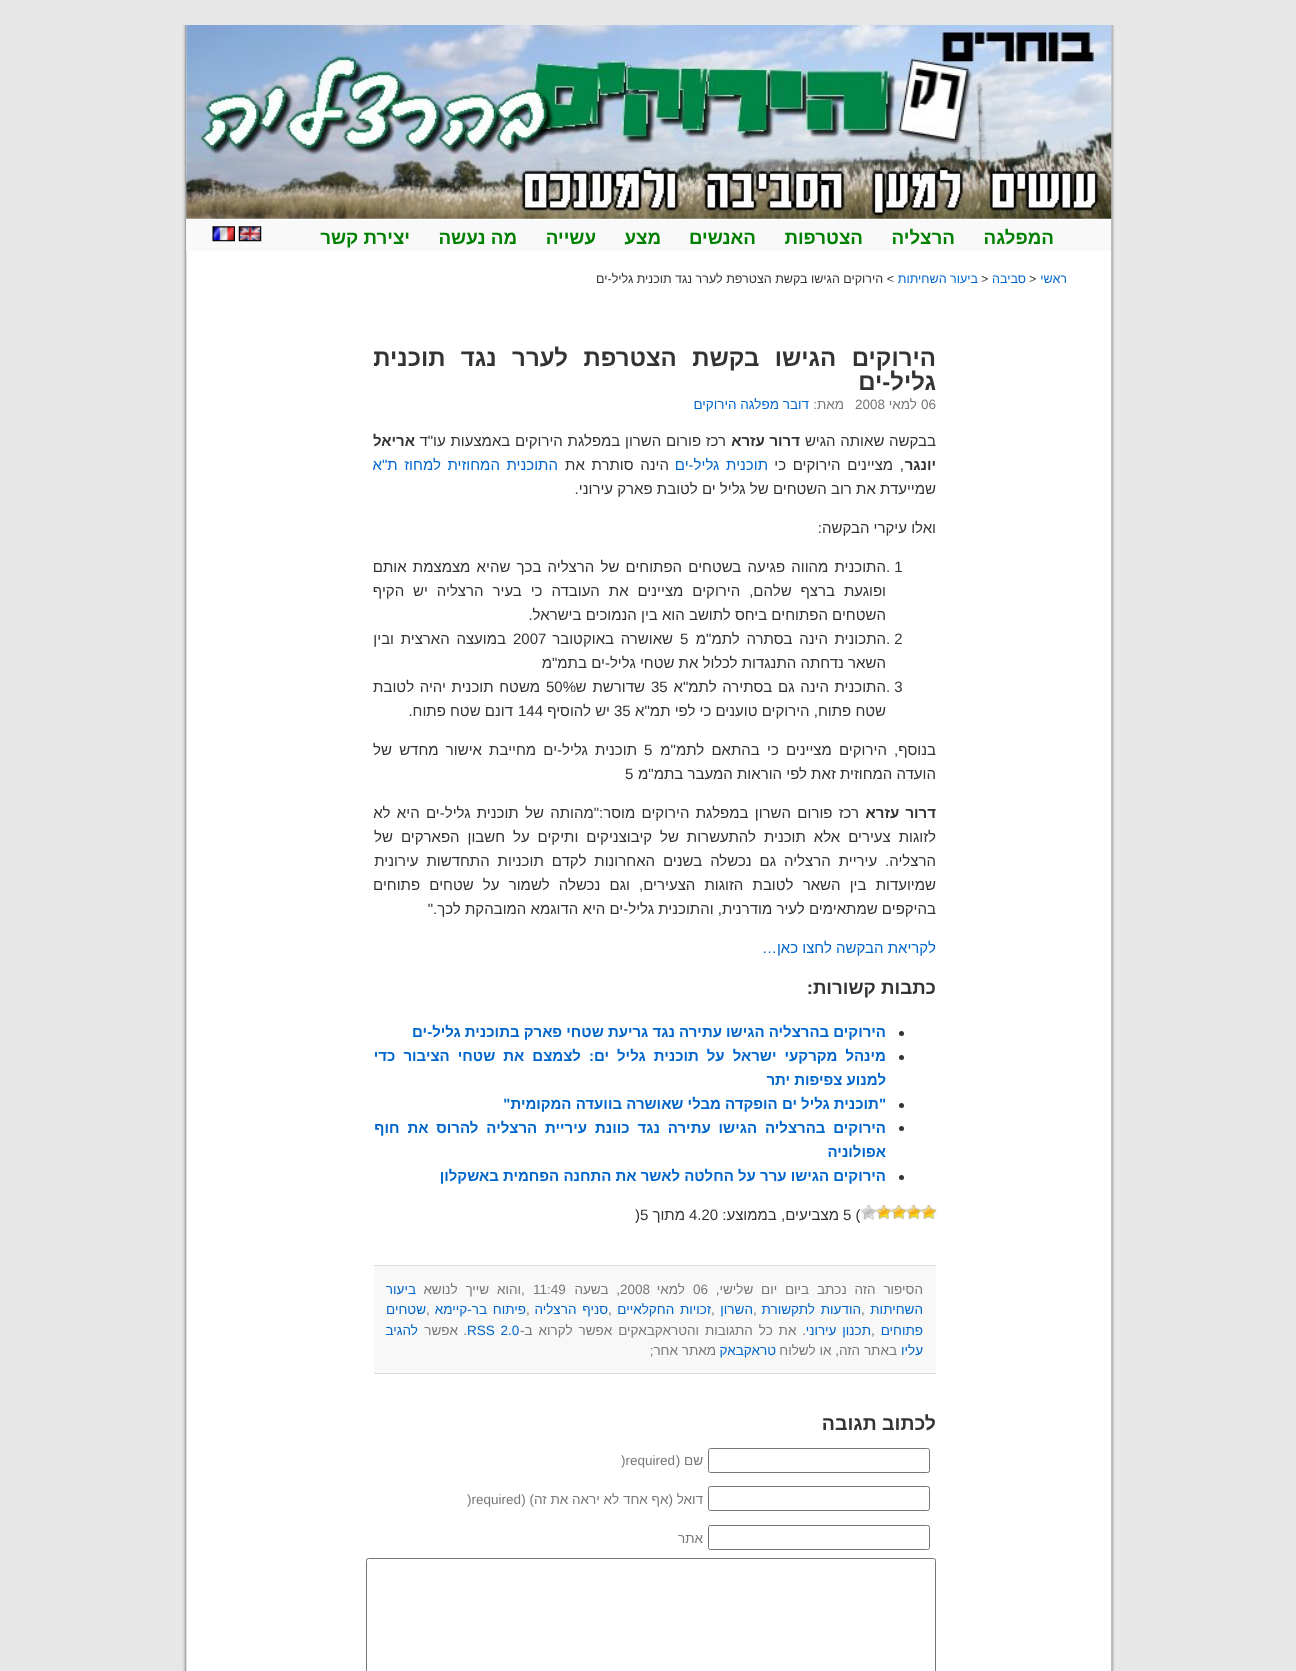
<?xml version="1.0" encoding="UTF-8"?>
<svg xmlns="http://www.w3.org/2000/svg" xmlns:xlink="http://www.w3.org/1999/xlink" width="1296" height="1671">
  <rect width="100%" height="100%" fill="#e7e7e7" />
  <image x="182" y="25" width="933" height="1646" xlink:href="image1.png" />
  <image x="186" y="25" width="926" height="194" xlink:href="image2.png" />
  <rect x="186" y="220" width="925" height="31" fill="#f9f9f9" />
  <image x="238" y="226" width="24" height="16" xlink:href="image3.png" />
  <image x="212" y="226" width="23" height="16" xlink:href="image4.png" />
  <circle cx="901.5" cy="1033.5" r="2.5" fill="#333333" />
  <circle cx="901.5" cy="1057.5" r="2.5" fill="#333333" />
  <circle cx="901.5" cy="1105.5" r="2.5" fill="#333333" />
  <circle cx="901.5" cy="1128.5" r="2.5" fill="#333333" />
  <circle cx="901.5" cy="1177.5" r="2.5" fill="#333333" />
  <image x="921" y="1205" width="16" height="14" xlink:href="image5.png" />
  <image x="906" y="1205" width="16" height="14" xlink:href="image6.png" />
  <image x="891" y="1205" width="16" height="14" xlink:href="image6.png" />
  <image x="876" y="1205" width="16" height="14" xlink:href="image6.png" />
  <image x="861" y="1205" width="16" height="15" xlink:href="image7.png" />
  <rect x="374" y="1266" width="562" height="107" fill="#f8f8f8" />
  <rect x="374" y="1265" width="562" height="1" fill="#dddddd" />
  <rect x="374" y="1373" width="562" height="1" fill="#dddddd" />
  <rect x="708.5" y="1448.5" width="221" height="24" rx="2" fill="none" stroke="#767676" />
  <rect x="708.5" y="1486.5" width="221" height="24" rx="2" fill="none" stroke="#767676" />
  <rect x="708.5" y="1525.5" width="221" height="24" rx="2" fill="none" stroke="#767676" />
  <rect x="366.5" y="1558.5" width="569" height="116" rx="2" fill="none" stroke="#767676" />
  <text x="1054" y="244" style="font-family: Liberation Sans; font-size: 18.75px; font-weight: bold; direction: rtl; fill: #008000">המפלגה</text>
  <text x="955" y="244" style="font-family: Liberation Sans; font-size: 18.75px; font-weight: bold; direction: rtl; fill: #008000">הרצליה</text>
  <text x="863" y="244" style="font-family: Liberation Sans; font-size: 18.75px; font-weight: bold; direction: rtl; fill: #008000">הצטרפות</text>
  <text x="756" y="244" style="font-family: Liberation Sans; font-size: 18.75px; font-weight: bold; direction: rtl; fill: #008000">האנשים</text>
  <text x="661" y="244" style="font-family: Liberation Sans; font-size: 18.75px; font-weight: bold; direction: rtl; fill: #008000">מצע</text>
  <text x="596" y="244" style="font-family: Liberation Sans; font-size: 18.75px; font-weight: bold; direction: rtl; fill: #008000">עשייה</text>
  <text x="517" y="244" style="font-family: Liberation Sans; font-size: 18.75px; font-weight: bold; direction: rtl; fill: #008000">מה נעשה</text>
  <text x="410" y="244" style="font-family: Liberation Sans; font-size: 18.75px; font-weight: bold; direction: rtl; fill: #008000">יצירת קשר</text>
  <text x="1067" y="283" style="font-family: Liberation Sans; font-size: 12.5px; direction: rtl; fill: #0066cc">ראשי</text>
  <text x="1029" y="283" style="font-family: Liberation Sans; font-size: 12.5px; fill: #333333">&gt;</text>
  <text x="1026" y="283" style="font-family: Liberation Sans; font-size: 12.5px; direction: rtl; fill: #0066cc">סביבה</text>
  <text x="981" y="283" style="font-family: Liberation Sans; font-size: 12.5px; fill: #333333">&gt;</text>
  <text x="978" y="283" style="font-family: Liberation Sans; font-size: 12.5px; direction: rtl; fill: #0066cc">ביעור השחיתות</text>
  <text x="894" y="283" style="font-family: Liberation Sans; font-size: 12.5px; direction: rtl; fill: #333333">&gt; הירוקים הגישו בקשת הצטרפת לערר נגד תוכנית גליל-ים</text>
  <text x="936" y="366" word-spacing="8.75" style="font-family: Liberation Sans; font-size: 24px; font-weight: bold; direction: rtl; fill: #333333">הירוקים הגישו בקשת הצטרפת לערר נגד תוכנית</text>
  <text x="936" y="390" style="font-family: Liberation Sans; font-size: 24px; font-weight: bold; direction: rtl; fill: #333333">גליל-ים</text>
  <text x="921" y="409" style="font-family: Liberation Sans; font-size: 13.5px; fill: #777777">06</text>
  <text x="917" y="409" style="font-family: Liberation Sans; font-size: 13.5px; direction: rtl; fill: #777777">למאי</text>
  <text x="855" y="409" style="font-family: Liberation Sans; font-size: 13.5px; fill: #777777">2008</text>
  <text x="844" y="409" style="font-family: Liberation Sans; font-size: 13.5px; direction: rtl; fill: #777777">מאת:</text>
  <text x="809" y="409" style="font-family: Liberation Sans; font-size: 13.5px; direction: rtl; fill: #0066cc">דובר מפלגה הירוקים</text>
  <text x="936" y="446" word-spacing="0.5" style="font-family: Liberation Sans; font-size: 15px; direction: rtl; fill: #333333">בבקשה שאותה הגיש</text>
  <text x="800" y="446" word-spacing="0.5" style="font-family: Liberation Sans; font-size: 15px; font-weight: bold; direction: rtl; fill: #333333">דרור עזרא</text>
  <text x="726" y="446" word-spacing="0.5" style="font-family: Liberation Sans; font-size: 15px; direction: rtl; fill: #333333">רכז פורום השרון במפלגת הירוקים באמצעות עו"ד</text>
  <text x="415" y="446" style="font-family: Liberation Sans; font-size: 15px; font-weight: bold; direction: rtl; fill: #333333">אריאל</text>
  <text x="936" y="470" style="font-family: Liberation Sans; font-size: 15px; font-weight: bold; direction: rtl; fill: #333333">יונגר</text>
  <text x="904" y="470" word-spacing="2.5" style="font-family: Liberation Sans; font-size: 15px; direction: rtl; fill: #333333">, מציינים הירוקים כי</text>
  <text x="768" y="470" word-spacing="2.5" style="font-family: Liberation Sans; font-size: 15px; direction: rtl; fill: #0066cc">תוכנית גליל-ים</text>
  <text x="669" y="470" word-spacing="2.5" style="font-family: Liberation Sans; font-size: 15px; direction: rtl; fill: #333333">הינה סותרת את</text>
  <text x="558" y="470" word-spacing="2.5" style="font-family: Liberation Sans; font-size: 15px; direction: rtl; fill: #0066cc">התוכנית המחוזית למחוז ת"א</text>
  <text x="936" y="494" style="font-family: Liberation Sans; font-size: 15px; direction: rtl; fill: #333333">שמייעדת את רוב השטחים של גליל ים לטובת פארק עירוני.</text>
  <text x="936" y="533" style="font-family: Liberation Sans; font-size: 15px; direction: rtl; fill: #333333">ואלו עיקרי הבקשה:</text>
  <text x="886" y="572" style="font-family: Liberation Sans; font-size: 15px; fill: #333333">. 1</text>
  <text x="886" y="572" word-spacing="2" style="font-family: Liberation Sans; font-size: 15px; direction: rtl; fill: #333333">התוכנית מהווה פגיעה בשטחים הפתוחים של הרצליה בכך שהיא מצמצמת אותם</text>
  <text x="886" y="596" word-spacing="4.75" style="font-family: Liberation Sans; font-size: 15px; direction: rtl; fill: #333333">ופוגעת ברצף שלהם, הירוקים מציינים את העובדה כי בעיר הרצליה יש הקיף</text>
  <text x="886" y="620" style="font-family: Liberation Sans; font-size: 15px; direction: rtl; fill: #333333">השטחים הפתוחים ביחס לתושב הוא בין הנמוכים בישראל.</text>
  <text x="886" y="644" style="font-family: Liberation Sans; font-size: 15px; fill: #333333">. 2</text>
  <text x="886" y="644" word-spacing="2.5" style="font-family: Liberation Sans; font-size: 15px; direction: rtl; fill: #333333">התכונית הינה בסתרה לתמ"מ</text>
  <text x="680" y="644" style="font-family: Liberation Sans; font-size: 15px; fill: #333333">5</text>
  <text x="673" y="644" word-spacing="2.5" style="font-family: Liberation Sans; font-size: 15px; direction: rtl; fill: #333333">שאושרה באוקטובר</text>
  <text x="513" y="644" style="font-family: Liberation Sans; font-size: 15px; fill: #333333">2007</text>
  <text x="506" y="644" word-spacing="2.5" style="font-family: Liberation Sans; font-size: 15px; direction: rtl; fill: #333333">במועצה הארצית ובין</text>
  <text x="886" y="668" style="font-family: Liberation Sans; font-size: 15px; direction: rtl; fill: #333333">השאר נדחתה התנגדות לכלול את שטחי גליל-ים בתמ"מ</text>
  <text x="886" y="692" style="font-family: Liberation Sans; font-size: 15px; fill: #333333">. 3</text>
  <text x="886" y="692" word-spacing="1.5" style="font-family: Liberation Sans; font-size: 15px; direction: rtl; fill: #333333">התוכנית הינה גם בסתירה לתמ"א</text>
  <text x="651" y="692" style="font-family: Liberation Sans; font-size: 15px; fill: #333333">35</text>
  <text x="645" y="692" word-spacing="2" style="font-family: Liberation Sans; font-size: 15px; direction: rtl; fill: #333333">שדורשת ש</text>
  <text x="546" y="692" style="font-family: Liberation Sans; font-size: 15px; fill: #333333">50%</text>
  <text x="540" y="692" word-spacing="1.5" style="font-family: Liberation Sans; font-size: 15px; direction: rtl; fill: #333333">משטח תוכנית יהיה לטובת</text>
  <text x="886" y="716" style="font-family: Liberation Sans; font-size: 15px; direction: rtl; fill: #333333">שטח פתוח, הירוקים טוענים כי לפי תמ"א</text>
  <text x="614" y="716" style="font-family: Liberation Sans; font-size: 15px; fill: #333333">35</text>
  <text x="610" y="716" style="font-family: Liberation Sans; font-size: 15px; direction: rtl; fill: #333333">יש להוסיף</text>
  <text x="518" y="716" style="font-family: Liberation Sans; font-size: 15px; fill: #333333">144</text>
  <text x="513" y="716" style="font-family: Liberation Sans; font-size: 15px; direction: rtl; fill: #333333">דונם שטח פתוח.</text>
  <text x="936" y="755" word-spacing="3" style="font-family: Liberation Sans; font-size: 15px; direction: rtl; fill: #333333">בנוסף, הירוקים מציינים כי בהתאם לתמ"מ</text>
  <text x="644" y="755" style="font-family: Liberation Sans; font-size: 15px; fill: #333333">5</text>
  <text x="637" y="755" word-spacing="3" style="font-family: Liberation Sans; font-size: 15px; direction: rtl; fill: #333333">תוכנית גליל-ים מחייבת אישור מחדש של</text>
  <text x="936" y="779" style="font-family: Liberation Sans; font-size: 15px; direction: rtl; fill: #333333">הועדה המחוזית זאת לפי הוראות המעבר בתמ"מ</text>
  <text x="625" y="779" style="font-family: Liberation Sans; font-size: 15px; fill: #333333">5</text>
  <text x="936" y="818" word-spacing="2.1" style="font-family: Liberation Sans; font-size: 15px; font-weight: bold; direction: rtl; fill: #333333">דרור עזרא</text>
  <text x="859" y="818" word-spacing="2.1" style="font-family: Liberation Sans; font-size: 15px; direction: rtl; fill: #333333">רכז פורום השרון במפלגת הירוקים מוסר:"מהותה של תוכנית גליל-ים היא לא</text>
  <text x="936" y="842" word-spacing="3.75" style="font-family: Liberation Sans; font-size: 15px; direction: rtl; fill: #333333">לזוגות צעירים אלא תוכנית להתעשרות של קיבוצניקים ותיקים על חשבון הפארקים של</text>
  <text x="936" y="866" word-spacing="3.75" style="font-family: Liberation Sans; font-size: 15px; direction: rtl; fill: #333333">הרצליה. עיריית הרצליה גם נכשלה בשנים האחרונות לקדם תוכניות התחדשות עירונית</text>
  <text x="936" y="890" word-spacing="5" style="font-family: Liberation Sans; font-size: 15px; direction: rtl; fill: #333333">שמיועדות בין השאר לטובת הזוגות הצעירים, וגם נכשלה לשמור על שטחים פתוחים</text>
  <text x="936" y="914" style="font-family: Liberation Sans; font-size: 15px; direction: rtl; fill: #333333">בהיקפים שמתאימים לעיר מודרנית, והתוכנית גליל-ים היא הדוגמא המובהקת לכך."</text>
  <text x="936" y="953" style="font-family: Liberation Sans; font-size: 15px; direction: rtl; fill: #0066cc">לקריאת הבקשה לחצו כאן…</text>
  <text x="936" y="994" style="font-family: Liberation Sans; font-size: 18.75px; font-weight: bold; direction: rtl; fill: #333333">כתבות קשורות:</text>
  <text x="886" y="1037" style="font-family: Liberation Sans; font-size: 15px; font-weight: bold; direction: rtl; fill: #0066cc">הירוקים בהרצליה הגישו עתירה נגד גריעת שטחי פארק בתוכנית גליל-ים</text>
  <text x="886" y="1061" word-spacing="3.9" style="font-family: Liberation Sans; font-size: 15px; font-weight: bold; direction: rtl; fill: #0066cc">מינהל מקרקעי ישראל על תוכנית גליל ים: לצמצם את שטחי הציבור כדי</text>
  <text x="886" y="1085" style="font-family: Liberation Sans; font-size: 15px; font-weight: bold; direction: rtl; fill: #0066cc">למנוע צפיפות יתר</text>
  <text x="886" y="1109" style="font-family: Liberation Sans; font-size: 15px; font-weight: bold; direction: rtl; fill: #0066cc">"תוכנית גליל ים הופקדה מבלי שאושרה בוועדה המקומית"</text>
  <text x="886" y="1133" word-spacing="3.75" style="font-family: Liberation Sans; font-size: 15px; font-weight: bold; direction: rtl; fill: #0066cc">הירוקים בהרצליה הגישו עתירה נגד כוונת עיריית הרצליה להרוס את חוף</text>
  <text x="886" y="1157" style="font-family: Liberation Sans; font-size: 15px; font-weight: bold; direction: rtl; fill: #0066cc">אפולוניה</text>
  <text x="886" y="1181" style="font-family: Liberation Sans; font-size: 15px; font-weight: bold; direction: rtl; fill: #0066cc">הירוקים הגישו ערר על החלטה לאשר את התחנה הפחמית באשקלון</text>
  <text x="843" y="1220" style="font-family: Liberation Sans; font-size: 15px; fill: #333333">5 (</text>
  <text x="839" y="1220" style="font-family: Liberation Sans; font-size: 15px; direction: rtl; fill: #333333">מצביעים, בממוצע:</text>
  <text x="689" y="1220" style="font-family: Liberation Sans; font-size: 15px; fill: #333333">4.20</text>
  <text x="685" y="1220" style="font-family: Liberation Sans; font-size: 15px; direction: rtl; fill: #333333">מתוך</text>
  <text x="635" y="1220" style="font-family: Liberation Sans; font-size: 15px; fill: #333333">)5</text>
  <text x="923" y="1294" word-spacing="4" style="font-family: Liberation Sans; font-size: 13.5px; direction: rtl; fill: #777777">הסיפור הזה נכתב ביום יום שלישי,</text>
  <text x="693" y="1294" style="font-family: Liberation Sans; font-size: 13.5px; fill: #777777">06</text>
  <text x="685" y="1294" style="font-family: Liberation Sans; font-size: 13.5px; direction: rtl; fill: #777777">למאי</text>
  <text x="620" y="1294" style="font-family: Liberation Sans; font-size: 13.5px; fill: #777777">2008</text>
  <text x="620" y="1294" word-spacing="4" style="font-family: Liberation Sans; font-size: 13.5px; direction: rtl; fill: #777777">, בשעה</text>
  <text x="533" y="1294" style="font-family: Liberation Sans; font-size: 13.5px; fill: #777777">11:49</text>
  <text x="521" y="1294" style="font-family: Liberation Sans; font-size: 13.5px; fill: #777777">,</text>
  <text x="521" y="1294" word-spacing="4" style="font-family: Liberation Sans; font-size: 13.5px; direction: rtl; fill: #777777">והוא שייך לנושא</text>
  <text x="416" y="1294" style="font-family: Liberation Sans; font-size: 13.5px; direction: rtl; fill: #0066cc">ביעור</text>
  <text x="923" y="1314" style="font-family: Liberation Sans; font-size: 13.5px; direction: rtl; fill: #0066cc">השחיתות</text>
  <text x="861" y="1314" style="font-family: Liberation Sans; font-size: 13.5px; fill: #777777">,</text>
  <text x="861" y="1314" word-spacing="2" style="font-family: Liberation Sans; font-size: 13.5px; direction: rtl; fill: #0066cc">הודעות לתקשורת</text>
  <text x="753" y="1314" style="font-family: Liberation Sans; font-size: 13.5px; fill: #777777">,</text>
  <text x="753" y="1314" style="font-family: Liberation Sans; font-size: 13.5px; direction: rtl; fill: #0066cc">השרון</text>
  <text x="711" y="1314" style="font-family: Liberation Sans; font-size: 13.5px; fill: #777777">,</text>
  <text x="711" y="1314" word-spacing="2" style="font-family: Liberation Sans; font-size: 13.5px; direction: rtl; fill: #0066cc">זכויות החקלאיים</text>
  <text x="608" y="1314" style="font-family: Liberation Sans; font-size: 13.5px; fill: #777777">,</text>
  <text x="608" y="1314" word-spacing="2" style="font-family: Liberation Sans; font-size: 13.5px; direction: rtl; fill: #0066cc">סניף הרצליה</text>
  <text x="526" y="1314" style="font-family: Liberation Sans; font-size: 13.5px; fill: #777777">,</text>
  <text x="526" y="1314" word-spacing="2" style="font-family: Liberation Sans; font-size: 13.5px; direction: rtl; fill: #0066cc">פיתוח בר-קיימא</text>
  <text x="426" y="1314" style="font-family: Liberation Sans; font-size: 13.5px; fill: #777777">,</text>
  <text x="426" y="1314" style="font-family: Liberation Sans; font-size: 13.5px; direction: rtl; fill: #0066cc">שטחים</text>
  <text x="923" y="1335" style="font-family: Liberation Sans; font-size: 13.5px; direction: rtl; fill: #0066cc">פתוחים</text>
  <text x="871" y="1335" style="font-family: Liberation Sans; font-size: 13.5px; fill: #777777">,</text>
  <text x="871" y="1335" word-spacing="2.1" style="font-family: Liberation Sans; font-size: 13.5px; direction: rtl; fill: #0066cc">תכנון עירוני</text>
  <text x="806" y="1335" word-spacing="2.1" style="font-family: Liberation Sans; font-size: 13.5px; direction: rtl; fill: #777777">. את כל התגובות והטראקבאקים אפשר לקרוא ב-</text>
  <text x="467" y="1335" word-spacing="2.1" style="font-family: Liberation Sans; font-size: 13.5px; fill: #0066cc">RSS 2.0</text>
  <text x="467" y="1335" style="font-family: Liberation Sans; font-size: 13.5px; direction: rtl; fill: #777777">.</text>
  <text x="458" y="1335" style="font-family: Liberation Sans; font-size: 13.5px; direction: rtl; fill: #777777">אפשר</text>
  <text x="418" y="1335" style="font-family: Liberation Sans; font-size: 13.5px; direction: rtl; fill: #0066cc">להגיב</text>
  <text x="923" y="1355" style="font-family: Liberation Sans; font-size: 13.5px; direction: rtl; fill: #0066cc">עליו</text>
  <text x="897" y="1355" style="font-family: Liberation Sans; font-size: 13.5px; direction: rtl; fill: #777777">באתר הזה, או לשלוח</text>
  <text x="776" y="1355" style="font-family: Liberation Sans; font-size: 13.5px; direction: rtl; fill: #0066cc">טראקבאק</text>
  <text x="716" y="1355" style="font-family: Liberation Sans; font-size: 13.5px; direction: rtl; fill: #777777">מאתר אחר;</text>
  <text x="936" y="1430" style="font-family: Liberation Sans; font-size: 19.5px; font-weight: bold; direction: rtl; fill: #333333">לכתוב תגובה</text>
  <text x="703" y="1465" style="font-family: Liberation Sans; font-size: 13.5px; direction: rtl; fill: #777777">שם (</text>
  <text x="621" y="1465" style="font-family: Liberation Sans; font-size: 13.5px; fill: #777777">)required</text>
  <text x="703" y="1504" style="font-family: Liberation Sans; font-size: 13.5px; direction: rtl; fill: #777777">דואל (אף אחד לא יראה את זה) (</text>
  <text x="467" y="1504" style="font-family: Liberation Sans; font-size: 13.5px; fill: #777777">)required</text>
  <text x="703" y="1543" style="font-family: Liberation Sans; font-size: 13.5px; direction: rtl; fill: #777777">אתר</text>
</svg>
